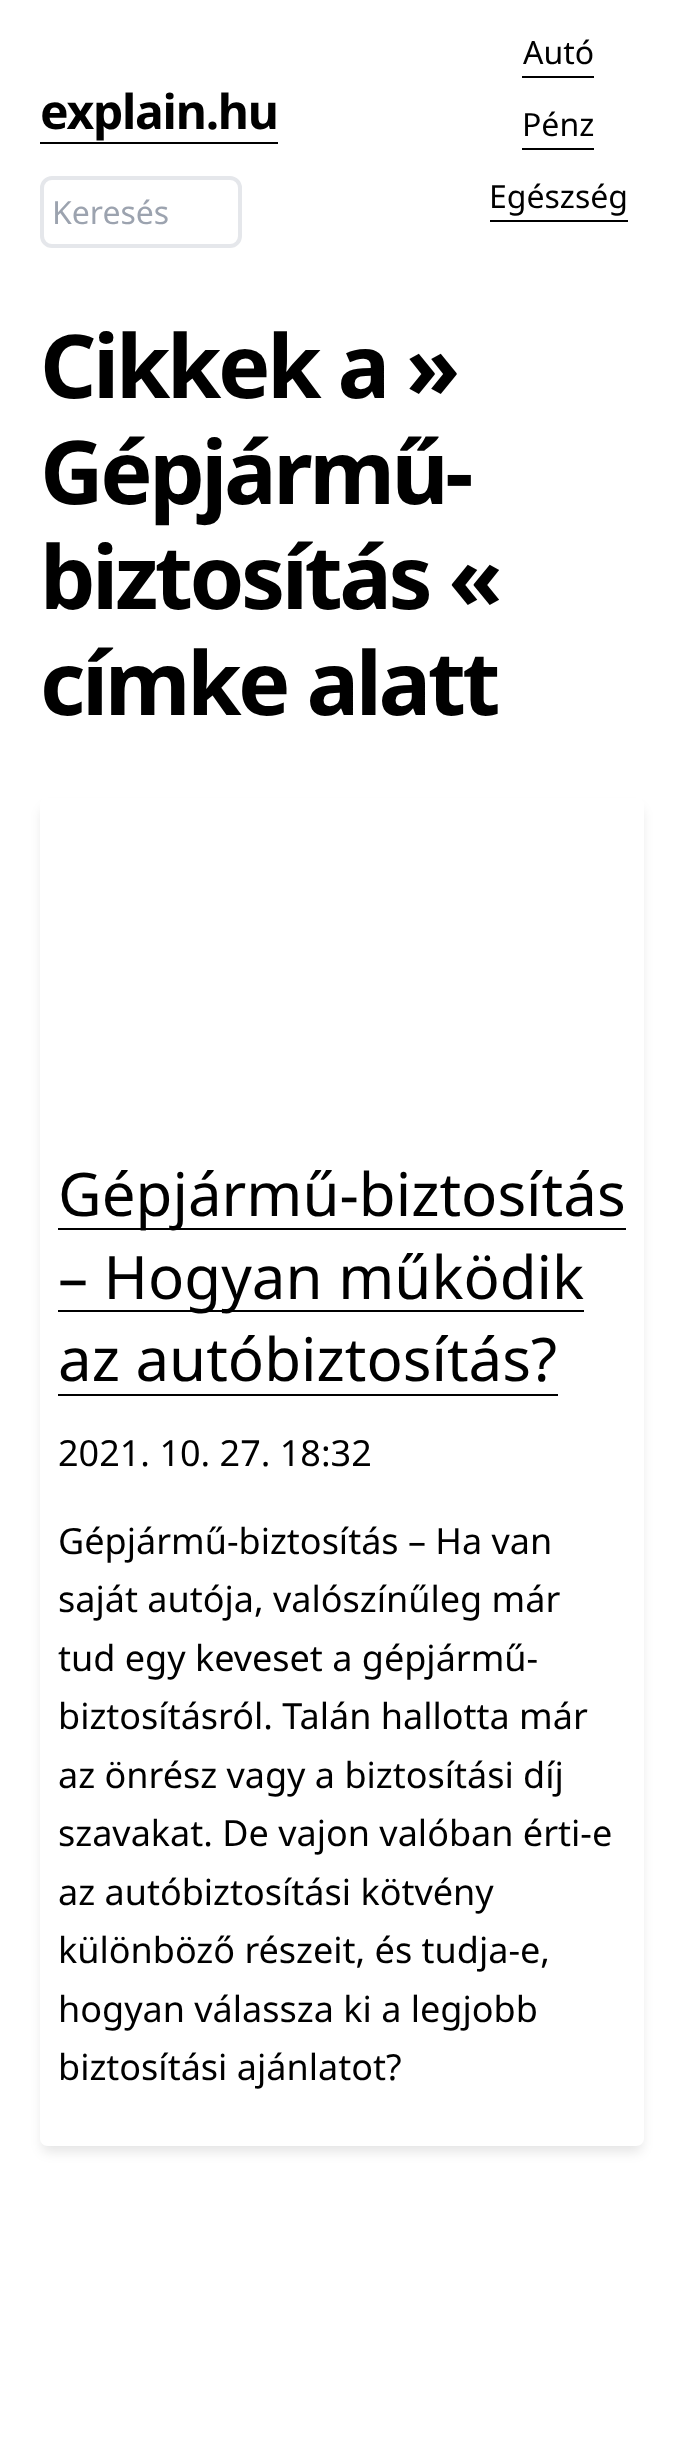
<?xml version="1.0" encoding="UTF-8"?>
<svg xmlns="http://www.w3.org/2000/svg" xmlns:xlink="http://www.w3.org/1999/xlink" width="683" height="2459">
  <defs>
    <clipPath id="clip1"><path d="M 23 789 h 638 v 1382 h -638 z m 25 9 h 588 c 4.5 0 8 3.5 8 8 v 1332 c 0 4.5 -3.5 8 -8 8 h -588 c -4.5 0 -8 -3.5 -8 -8 v -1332 c 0 -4.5 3.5 -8 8 -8 z" clip-rule="evenodd" /></clipPath>
  </defs>
  <rect width="100%" height="100%" fill="#ffffff" />
  <rect x="40" y="142" width="238" height="2" fill="#000000" />
  <rect x="522" y="76" width="72" height="2" fill="#000000" />
  <rect x="522" y="148" width="72" height="2" fill="#000000" />
  <rect x="490" y="220" width="138" height="2" fill="#000000" />
  <rect x="42" y="178" width="198" height="68" rx="10" fill="none" stroke="#e5e7eb" stroke-width="4" />
  <g clip-path="url(#clip1)">
    <rect x="42" y="808" width="600" height="1344" rx="6" fill="#000000" fill-opacity="0.1" filter="blur(6px)" />
  </g>
  <rect x="58" y="1228" width="568" height="2" fill="#000000" />
  <rect x="58" y="1310" width="526" height="2" fill="#000000" />
  <rect x="58" y="1394" width="500" height="2" fill="#000000" />
  <text x="40" y="129" style="font-family: Noto Sans; font-size: 48px; font-weight: bold; letter-spacing: -1.25px; fill: #000000">explain.hu</text>
  <text x="523" y="64" style="font-family: Noto Sans; font-size: 32px; fill: #000000">Autó</text>
  <text x="522" y="136" style="font-family: Noto Sans; font-size: 32px; fill: #000000">Pénz</text>
  <text x="489" y="208" style="font-family: Noto Sans; font-size: 32px; fill: #000000">Egészség</text>
  <text x="52" y="224" style="font-family: Noto Sans; font-size: 32px; fill: #9ca3af">Keresés</text>
  <text x="40" y="398" style="font-family: Noto Sans; font-size: 88px; font-weight: bold; letter-spacing: -3.5px; fill: #000000">Cikkek a »</text>
  <text x="40" y="504" style="font-family: Noto Sans; font-size: 88px; font-weight: bold; letter-spacing: -3.5px; fill: #000000">Gépjármű-</text>
  <text x="40" y="609" style="font-family: Noto Sans; font-size: 88px; font-weight: bold; letter-spacing: -3.5px; fill: #000000">biztosítás «</text>
  <text x="40" y="715" style="font-family: Noto Sans; font-size: 88px; font-weight: bold; letter-spacing: -3.5px; fill: #000000">címke alatt</text>
  <text x="58" y="1216" style="font-family: Noto Sans; font-size: 60px; fill: #000000">Gépjármű-biztosítás</text>
  <text x="58" y="1299" style="font-family: Noto Sans; font-size: 60px; fill: #000000">– Hogyan működik</text>
  <text x="58" y="1381" style="font-family: Noto Sans; font-size: 60px; fill: #000000">az autóbiztosítás?</text>
  <text x="58" y="1466" style="font-family: Noto Sans; font-size: 36px; fill: #000000">2021. 10. 27. 18:32</text>
  <text x="58" y="1554" style="font-family: Noto Sans; font-size: 36px; fill: #000000">Gépjármű-biztosítás – Ha van</text>
  <text x="58" y="1612" style="font-family: Noto Sans; font-size: 36px; fill: #000000">saját autója, valószínűleg már</text>
  <text x="58" y="1671" style="font-family: Noto Sans; font-size: 36px; fill: #000000">tud egy keveset a gépjármű-</text>
  <text x="58" y="1729" style="font-family: Noto Sans; font-size: 36px; fill: #000000">biztosításról. Talán hallotta már</text>
  <text x="58" y="1788" style="font-family: Noto Sans; font-size: 36px; fill: #000000">az önrész vagy a biztosítási díj</text>
  <text x="58" y="1846" style="font-family: Noto Sans; font-size: 36px; fill: #000000">szavakat. De vajon valóban érti-e</text>
  <text x="58" y="1905" style="font-family: Noto Sans; font-size: 36px; fill: #000000">az autóbiztosítási kötvény</text>
  <text x="58" y="1963" style="font-family: Noto Sans; font-size: 36px; fill: #000000">különböző részeit, és tudja-e,</text>
  <text x="58" y="2022" style="font-family: Noto Sans; font-size: 36px; fill: #000000">hogyan válassza ki a legjobb</text>
  <text x="58" y="2080" style="font-family: Noto Sans; font-size: 36px; fill: #000000">biztosítási ajánlatot?</text>
</svg>
